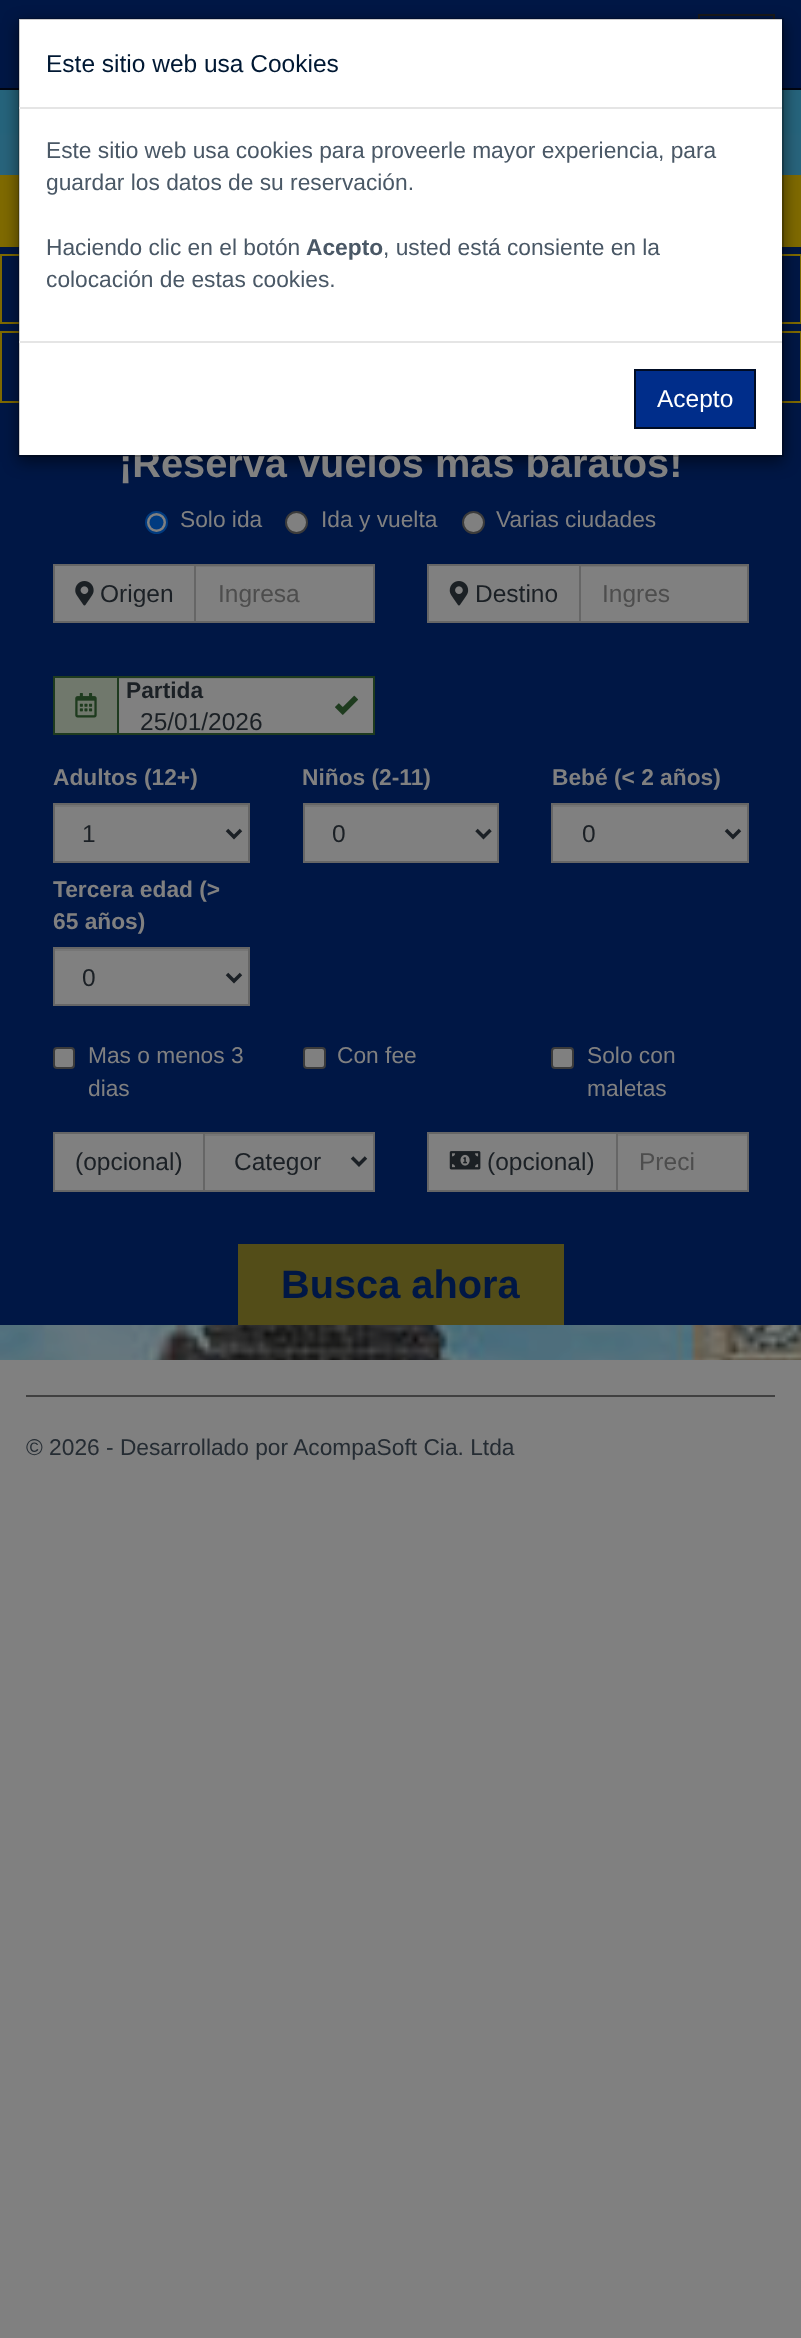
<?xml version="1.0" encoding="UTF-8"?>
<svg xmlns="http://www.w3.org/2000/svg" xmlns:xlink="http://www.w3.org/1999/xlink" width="801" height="2338">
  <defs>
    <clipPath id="clip1"><rect x="333" y="817" width="115" height="32" /></clipPath>
  </defs>
  <rect width="100%" height="100%" fill="#808080" />
  <rect width="801" height="88" fill="#001745" />
  <rect y="88" width="801" height="2" fill="#000612" />
  <rect x="699" y="15" width="75" height="58" fill="none" stroke="#1a1a1a" stroke-width="2" />
  <image x="0" y="90" width="801" height="1270" xlink:href="image1.png" />
  <rect y="247" width="801" height="1078" fill="#001745" />
  <rect y="175" width="801" height="72" fill="#7f6a00" />
  <rect x="1" y="255" width="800" height="68" fill="none" stroke="#7f6a00" stroke-width="2" />
  <rect x="1" y="332" width="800" height="70" fill="none" stroke="#7f6a00" stroke-width="2" />
  <rect x="18" y="23" width="766" height="439" fill="#000000" fill-opacity="0.5" filter="blur(8px)" />
  <circle cx="156.5" cy="522.5" r="10.5" fill="#808080" stroke="#003b80" stroke-width="2" />
  <circle cx="156.5" cy="522.5" r="7" fill="#003b80" />
  <circle cx="296.5" cy="522.5" r="10.5" fill="#808080" stroke="#3b3b3b" stroke-width="2" />
  <circle cx="473.5" cy="522.5" r="10.5" fill="#808080" stroke="#3b3b3b" stroke-width="2" />
  <rect x="55" y="566" width="139" height="55" fill="#808080" />
  <rect x="53" y="564" width="141" height="2" fill="#666666" />
  <rect x="53" y="621" width="141" height="2" fill="#666666" />
  <rect x="53" y="564" width="2" height="59" fill="#666666" />
  <image x="75" y="581" width="19" height="25" xlink:href="image2.png" />
  <rect x="196" y="567" width="177" height="54" fill="#808080" />
  <rect x="196" y="566" width="177" height="1" fill="#767676" />
  <rect x="195" y="565" width="179" height="57" fill="none" stroke="#666666" stroke-width="2" />
  <rect x="429" y="566" width="150" height="55" fill="#808080" />
  <rect x="427" y="564" width="152" height="2" fill="#666666" />
  <rect x="427" y="621" width="152" height="2" fill="#666666" />
  <rect x="427" y="564" width="2" height="59" fill="#666666" />
  <image x="449" y="581" width="20" height="25" xlink:href="image3.png" />
  <rect x="581" y="567" width="166" height="54" fill="#808080" />
  <rect x="581" y="566" width="166" height="1" fill="#767676" />
  <rect x="580" y="565" width="168" height="57" fill="none" stroke="#666666" stroke-width="2" />
  <rect x="55" y="678" width="62" height="55" fill="#70786c" />
  <rect x="53" y="676" width="64" height="2" fill="#1e3b1f" />
  <rect x="53" y="733" width="64" height="2" fill="#1e3b1f" />
  <rect x="53" y="676" width="2" height="59" fill="#1e3b1f" />
  <image x="75" y="693" width="22" height="25" xlink:href="image4.png" />
  <rect x="119" y="679" width="254" height="54" fill="#808080" />
  <rect x="119" y="678" width="254" height="1" fill="#767676" />
  <rect x="118" y="677" width="256" height="57" fill="none" stroke="#1e3b1f" stroke-width="2" />
  <image x="335" y="695" width="23" height="20" xlink:href="image5.png" />
  <rect x="55" y="807" width="193" height="54" fill="#808080" />
  <rect x="54" y="805" width="195" height="2" fill="#767676" />
  <rect x="54" y="804" width="195" height="58" fill="none" stroke="#666666" stroke-width="2" />
  <path d="M 227 830 l 7 7 l 7 -7" fill="none" stroke="#1b2025" stroke-width="3.5" />
  <rect x="305" y="807" width="192" height="54" fill="#808080" />
  <rect x="305" y="805" width="192" height="2" fill="#767676" />
  <rect x="304" y="804" width="194" height="58" fill="none" stroke="#666666" stroke-width="2" />
  <path d="M 476.5 830 l 7 7 l 7 -7" fill="none" stroke="#1b2025" stroke-width="3.5" />
  <rect x="553" y="807" width="194" height="54" fill="#808080" />
  <rect x="553" y="805" width="194" height="2" fill="#767676" />
  <rect x="552" y="804" width="196" height="58" fill="none" stroke="#666666" stroke-width="2" />
  <path d="M 726 830 l 7 7 l 7 -7" fill="none" stroke="#1b2025" stroke-width="3.5" />
  <rect x="55" y="951" width="193" height="53" fill="#808080" />
  <rect x="54" y="949" width="195" height="2" fill="#767676" />
  <rect x="54" y="948" width="195" height="57" fill="none" stroke="#666666" stroke-width="2" />
  <path d="M 227 974 l 7 7 l 7 -7" fill="none" stroke="#1b2025" stroke-width="3.5" />
  <rect x="54" y="1048" width="20" height="20" rx="3" fill="#808080" stroke="#3b3b3b" stroke-width="2" />
  <rect x="304" y="1048" width="21" height="20" rx="3" fill="#808080" stroke="#3b3b3b" stroke-width="2" />
  <rect x="552" y="1048" width="21" height="20" rx="3" fill="#808080" stroke="#3b3b3b" stroke-width="2" />
  <rect x="55" y="1134" width="148" height="56" fill="#808080" />
  <rect x="53" y="1132" width="150" height="2" fill="#666666" />
  <rect x="53" y="1190" width="150" height="2" fill="#666666" />
  <rect x="53" y="1132" width="2" height="60" fill="#666666" />
  <rect x="205" y="1136" width="168" height="54" fill="#808080" />
  <rect x="205" y="1134" width="168" height="2" fill="#767676" />
  <rect x="204" y="1133" width="170" height="58" fill="none" stroke="#666666" stroke-width="2" />
  <path d="M 352 1157.5 l 7 7 l 7 -7" fill="none" stroke="#1b2025" stroke-width="3.5" />
  <rect x="429" y="1134" width="187" height="56" fill="#808080" />
  <rect x="427" y="1132" width="189" height="2" fill="#666666" />
  <rect x="427" y="1190" width="189" height="2" fill="#666666" />
  <rect x="427" y="1132" width="2" height="60" fill="#666666" />
  <image x="449" y="1151" width="32" height="19" xlink:href="image6.png" />
  <rect x="618" y="1136" width="129" height="54" fill="#808080" />
  <rect x="618" y="1134" width="129" height="2" fill="#767676" />
  <rect x="617" y="1133" width="131" height="58" fill="none" stroke="#666666" stroke-width="2" />
  <rect x="238" y="1244" width="326" height="81" fill="#534d18" />
  <rect x="26" y="1395" width="749" height="2" fill="#404040" />
  <text x="119" y="477" style="font-family: Liberation Sans; font-size: 39.75px; font-weight: bold; fill: #808080">¡Reserva vuelos más baratos!</text>
  <rect x="19" y="19" width="763" height="436" fill="#ffffff" />
  <rect x="19" y="19" width="764" height="437" fill="none" stroke="#000000" stroke-opacity="0.2" stroke-width="2" />
  <text x="46" y="287" style="font-family: Liberation Sans; font-size: 22.75px; fill: #4a5866">colocación de estas cookies.</text>
  <text x="383" y="255" style="font-family: Liberation Sans; font-size: 22.75px; fill: #4a5866">, usted está consiente en la</text>
  <text x="306" y="255" style="font-family: Liberation Sans; font-size: 22.75px; font-weight: bold; fill: #4a5866">Acepto</text>
  <text x="46" y="255" style="font-family: Liberation Sans; font-size: 22.75px; fill: #4a5866">Haciendo clic en el botón</text>
  <text x="46" y="190" style="font-family: Liberation Sans; font-size: 22.75px; fill: #4a5866">guardar los datos de su reservación.</text>
  <text x="46" y="158" style="font-family: Liberation Sans; font-size: 22.75px; fill: #4a5866">Este sitio web usa cookies para proveerle mayor experiencia, para</text>
  <rect x="635" y="370" width="120" height="58" fill="#002d8a" stroke="#000c24" stroke-width="2" />
  <text x="657" y="407" style="font-family: Liberation Sans; font-size: 24.5px; fill: #ffffff">Acepto</text>
  <text x="46" y="72" style="font-family: Liberation Sans; font-size: 24.5px; fill: #001833">Este sitio web usa Cookies</text>
  <rect x="19" y="341" width="763" height="2" fill="#e5e5e5" />
  <rect x="19" y="107" width="763" height="2" fill="#e5e5e5" />
  <text x="180" y="527" style="font-family: Liberation Sans; font-size: 22.75px; fill: #808080">Solo ida</text>
  <text x="321" y="527" style="font-family: Liberation Sans; font-size: 22.75px; fill: #808080">Ida y vuelta</text>
  <text x="496" y="527" style="font-family: Liberation Sans; font-size: 22.75px; fill: #808080">Varias ciudades</text>
  <text x="100" y="602" style="font-family: Liberation Sans; font-size: 24.5px; fill: #1b2025">Origen</text>
  <text x="218" y="602" style="font-family: Liberation Sans; font-size: 24.5px; fill: #4d4d4d">Ingresa</text>
  <text x="475" y="602" style="font-family: Liberation Sans; font-size: 24.5px; fill: #1b2025">Destino</text>
  <text x="602" y="602" style="font-family: Liberation Sans; font-size: 24.5px; fill: #4d4d4d">Ingres</text>
  <text x="126" y="698" style="font-family: Liberation Sans; font-size: 22.75px; font-weight: bold; fill: #1b2025">Partida</text>
  <text x="140" y="730" style="font-family: Liberation Sans; font-size: 24.5px; fill: #1b2025">25/01/2026</text>
  <text x="53" y="785" style="font-family: Liberation Sans; font-size: 22.75px; font-weight: bold; fill: #808080">Adultos (12+)</text>
  <text x="82" y="842" style="font-family: Liberation Sans; font-size: 24.5px; fill: #1b2025">1</text>
  <text x="302" y="785" style="font-family: Liberation Sans; font-size: 22.75px; font-weight: bold; fill: #808080">Niños (2-11)</text>
  <g clip-path="url(#clip1)">
    <text x="332" y="842" style="font-family: Liberation Sans; font-size: 24.5px; fill: #1b2025">0</text>
  </g>
  <text x="552" y="785" style="font-family: Liberation Sans; font-size: 22.75px; font-weight: bold; fill: #808080">Bebé (&lt; 2 años)</text>
  <text x="582" y="842" style="font-family: Liberation Sans; font-size: 24.5px; fill: #1b2025">0</text>
  <text x="53" y="897" style="font-family: Liberation Sans; font-size: 22.75px; font-weight: bold; fill: #808080">Tercera edad (&gt;</text>
  <text x="53" y="929" style="font-family: Liberation Sans; font-size: 22.75px; font-weight: bold; fill: #808080">65 años)</text>
  <text x="82" y="986" style="font-family: Liberation Sans; font-size: 24.5px; fill: #1b2025">0</text>
  <text x="88" y="1063" style="font-family: Liberation Sans; font-size: 22.75px; fill: #808080">Mas o menos 3</text>
  <text x="88" y="1096" style="font-family: Liberation Sans; font-size: 22.75px; fill: #808080">dias</text>
  <text x="337" y="1063" style="font-family: Liberation Sans; font-size: 22.75px; fill: #808080">Con fee</text>
  <text x="587" y="1063" style="font-family: Liberation Sans; font-size: 22.75px; fill: #808080">Solo con</text>
  <text x="587" y="1096" style="font-family: Liberation Sans; font-size: 22.75px; fill: #808080">maletas</text>
  <text x="75" y="1170" style="font-family: Liberation Sans; font-size: 24.5px; fill: #1b2025">(opcional)</text>
  <text x="234" y="1170" style="font-family: Liberation Sans; font-size: 24.5px; fill: #1b2025">Categor</text>
  <text x="487" y="1170" style="font-family: Liberation Sans; font-size: 24.5px; fill: #1b2025">(opcional)</text>
  <text x="639" y="1170" style="font-family: Liberation Sans; font-size: 24.5px; fill: #4d4d4d">Preci</text>
  <text x="281" y="1298" style="font-family: Liberation Sans; font-size: 39.75px; font-weight: bold; fill: #001745">Busca ahora</text>
  <text x="26" y="1455" style="font-family: Liberation Sans; font-size: 22.75px; fill: #252c33">© 2026 - Desarrollado por AcompaSoft Cia. Ltda</text>
</svg>
